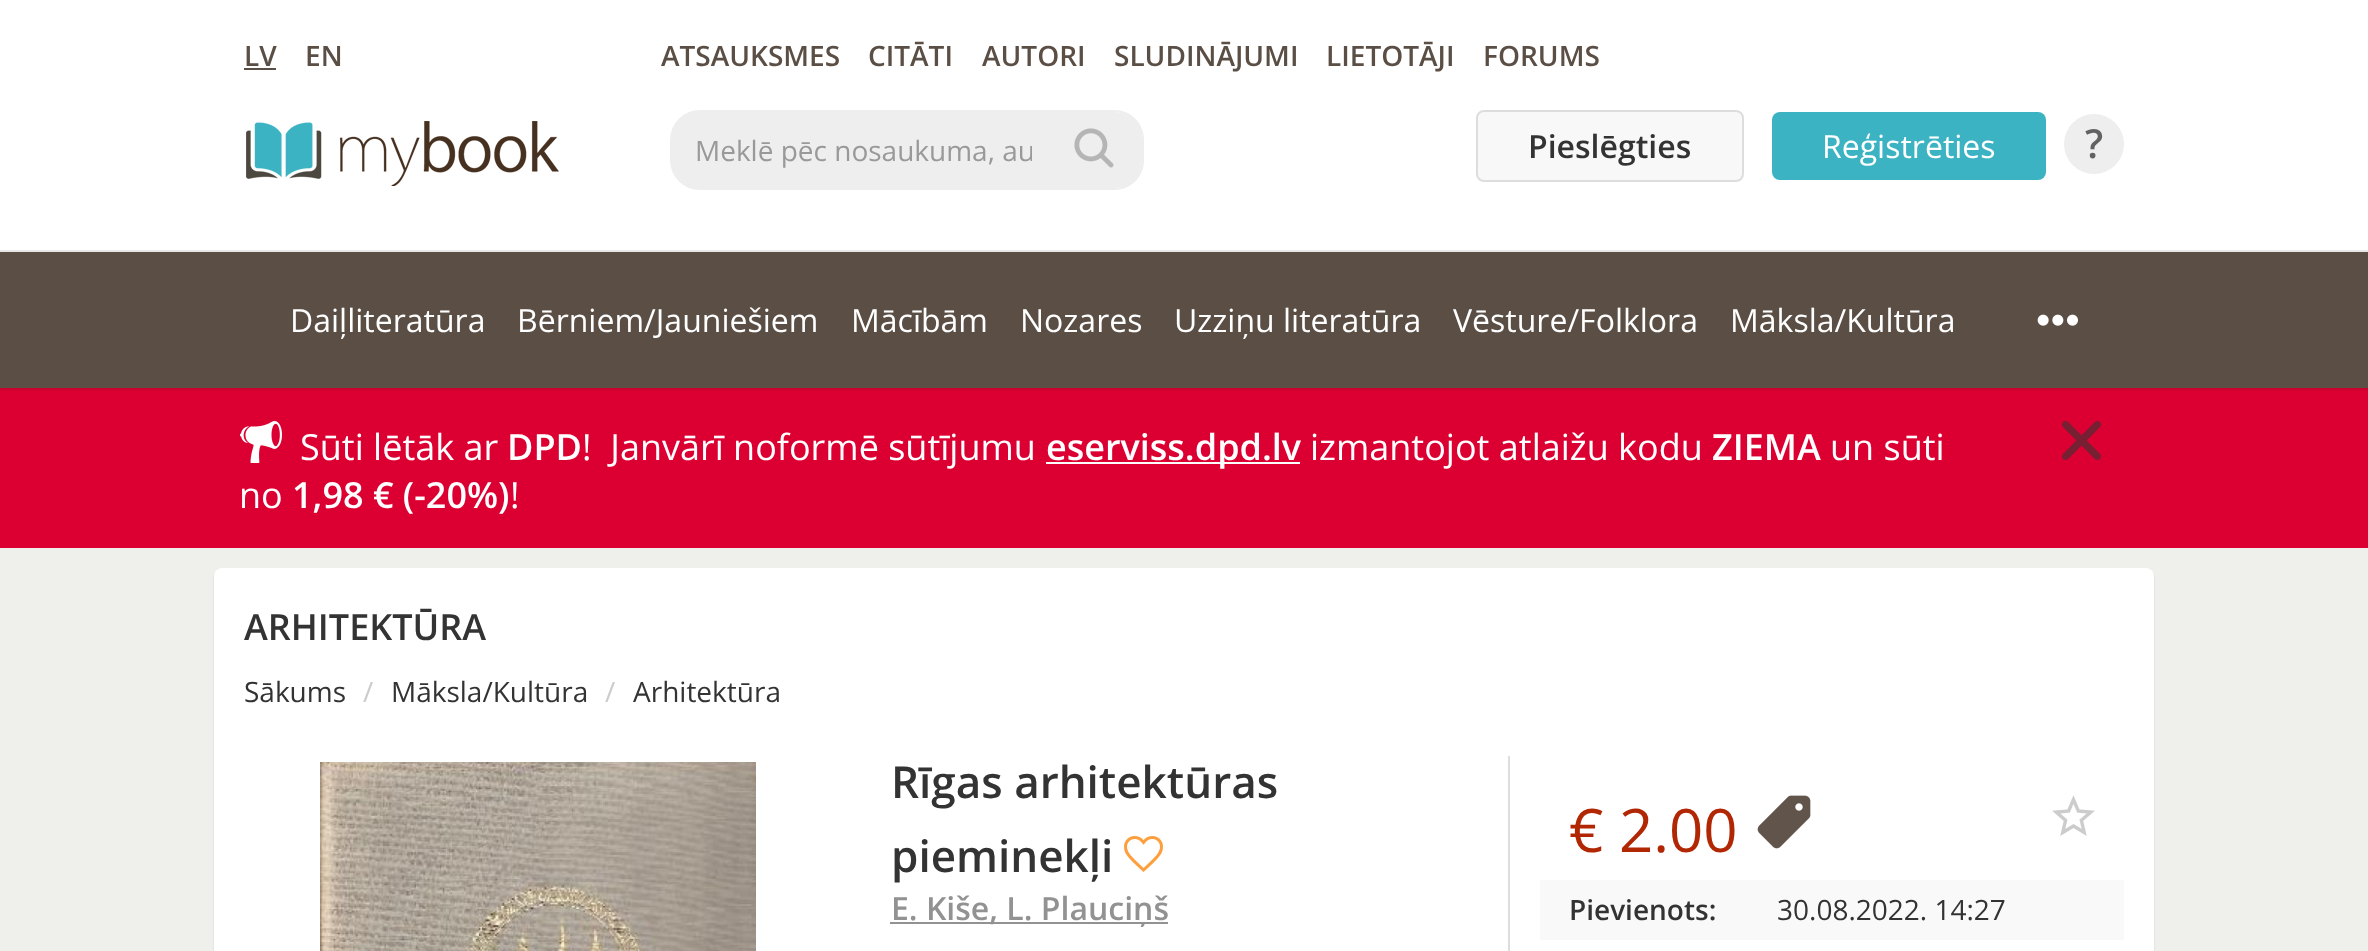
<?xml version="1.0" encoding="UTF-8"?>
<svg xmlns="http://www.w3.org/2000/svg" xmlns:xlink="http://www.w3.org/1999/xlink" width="2368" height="951">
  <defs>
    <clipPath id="clip1"><rect x="696" y="132" width="336" height="38" /></clipPath>
  </defs>
  <rect width="100%" height="100%" fill="#efefeb" />
  <rect width="2368" height="250" fill="#ffffff" />
  <rect x="244" y="68" width="32" height="2" fill="#5a4e45" />
  <image x="246" y="121" width="313" height="65" xlink:href="image1.png" />
  <path d="M 700 111 h 357 v 78 h -357 c -16 0 -29 -13 -29 -29 v -20 c 0 -16 13 -29 29 -29 z" fill="#eeeeee" stroke="#eeeeee" stroke-width="2" />
  <path d="M 1046 112 h 68 c 15.5 0 28 12.5 28 28 v 20 c 0 15.5 -12.5 28 -28 28 h -68 z" fill="#eeeeee" />
  <path d="M 1046 110 h 68 c 17 0 30 13 30 30 v 20 c 0 17 -13 30 -30 30 h -68 z m 0 2 h 68 c 15 0 28 13 28 28 v 20 c 0 15 -13 28 -28 28 h -68 z" fill="#eeeeee" fill-rule="evenodd" />
  <image x="1074" y="128" width="40" height="40" xlink:href="image2.png" />
  <rect x="1477" y="111" width="266" height="70" rx="7" fill="#f8f8f8" stroke="#dddddd" stroke-width="2" />
  <rect x="1772" y="112" width="274" height="68" rx="8" fill="#3bb3c2" />
  <circle cx="2094" cy="144" r="30" fill="#efeeee" />
  <rect y="388" width="2368" height="160" fill="#dc0032" />
  <rect y="252" width="2368" height="138" fill="#000000" fill-opacity="0.1" filter="blur(1px)" />
  <rect y="252" width="2368" height="136" fill="#5a4e45" />
  <rect y="250" width="2368" height="2" fill="#e7e7e7" />
  <image x="2037" y="314" width="41" height="12" xlink:href="image3.png" />
  <image x="240" y="421" width="42" height="42" xlink:href="image4.png" />
  <rect x="1046" y="462" width="254" height="2" fill="#ffffff" />
  <image x="2062" y="421" width="39" height="39" xlink:href="image5.png" />
  <rect x="214" y="570" width="1940" height="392" rx="8" fill="#000000" fill-opacity="0.1" filter="blur(1px)" />
  <rect x="214" y="568" width="1940" height="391" rx="8" fill="#ffffff" />
  <image x="320" y="762" width="436" height="189" xlink:href="image6.png" />
  <image x="1124" y="836" width="39" height="36" xlink:href="image7.png" />
  <rect x="890" y="922" width="278" height="2" fill="#929292" />
  <rect x="1508" y="756" width="2" height="195" fill="#dddddd" />
  <image x="1757" y="795" width="54" height="54" xlink:href="image8.png" />
  <image x="2052" y="795" width="43" height="41" xlink:href="image9.png" />
  <rect x="1540" y="880" width="584" height="60" fill="#f9f9f9" />
  <text x="244" y="66" style="font-family: Open Sans; font-size: 28px; font-weight: 600; fill: #5a4e45">LV</text>
  <text x="305" y="66" style="font-family: Open Sans; font-size: 28px; font-weight: 600; fill: #5a4e45">EN</text>
  <text x="661" y="66" style="font-family: Open Sans; font-size: 28px; font-weight: 600; fill: #5a4e45">ATSAUKSMES</text>
  <text x="868" y="66" style="font-family: Open Sans; font-size: 28px; font-weight: 600; fill: #5a4e45">CITĀTI</text>
  <text x="982" y="66" style="font-family: Open Sans; font-size: 28px; font-weight: 600; fill: #5a4e45">AUTORI</text>
  <text x="1114" y="66" style="font-family: Open Sans; font-size: 28px; font-weight: 600; fill: #5a4e45">SLUDINĀJUMI</text>
  <text x="1326" y="66" style="font-family: Open Sans; font-size: 28px; font-weight: 600; fill: #5a4e45">LIETOTĀJI</text>
  <text x="1483" y="66" style="font-family: Open Sans; font-size: 28px; font-weight: 600; fill: #5a4e45">FORUMS</text>
  <g clip-path="url(#clip1)">
    <text x="695" y="161" style="font-family: Open Sans; font-size: 28px; fill: #999999">Meklē pēc nosaukuma, au</text>
  </g>
  <text x="1528" y="158" style="font-family: Open Sans; font-size: 32px; font-weight: 600; fill: #333333">Pieslēgties</text>
  <text x="1822" y="158" style="font-family: Open Sans; font-size: 32px; fill: #ffffff">Reģistrēties</text>
  <text x="2085" y="158" style="font-family: Open Sans; font-size: 40px; font-weight: 600; fill: #616361">?</text>
  <text x="290" y="332" style="font-family: Open Sans; font-size: 32px; fill: #ffffff">Daiļliteratūra</text>
  <text x="517" y="332" style="font-family: Open Sans; font-size: 32px; fill: #ffffff">Bērniem/Jauniešiem</text>
  <text x="851" y="332" style="font-family: Open Sans; font-size: 32px; fill: #ffffff">Mācībām</text>
  <text x="1020" y="332" style="font-family: Open Sans; font-size: 32px; fill: #ffffff">Nozares</text>
  <text x="1174" y="332" style="font-family: Open Sans; font-size: 32px; fill: #ffffff">Uzziņu literatūra</text>
  <text x="1453" y="332" style="font-family: Open Sans; font-size: 32px; fill: #ffffff">Vēsture/Folklora</text>
  <text x="1730" y="332" style="font-family: Open Sans; font-size: 32px; fill: #ffffff">Māksla/Kultūra</text>
  <text x="300" y="460" style="font-family: Open Sans; font-size: 36px; fill: #ffffff">Sūti lētāk ar</text>
  <text x="507" y="460" style="font-family: Open Sans; font-size: 36px; font-weight: 600; fill: #ffffff">DPD</text>
  <text x="582" y="460" style="font-family: Open Sans; font-size: 36px; fill: #ffffff" xml:space="preserve">!  Janvārī noformē sūtījumu</text>
  <text x="1046" y="460" style="font-family: Open Sans; font-size: 36px; font-weight: 600; fill: #ffffff">eserviss.dpd.lv</text>
  <text x="1310" y="460" style="font-family: Open Sans; font-size: 36px; fill: #ffffff">izmantojot atlaižu kodu</text>
  <text x="1712" y="460" style="font-family: Open Sans; font-size: 36px; font-weight: 600; fill: #ffffff">ZIEMA</text>
  <text x="1830" y="460" style="font-family: Open Sans; font-size: 36px; fill: #ffffff">un sūti</text>
  <text x="239" y="508" style="font-family: Open Sans; font-size: 36px; fill: #ffffff">no</text>
  <text x="292" y="508" style="font-family: Open Sans; font-size: 36px; font-weight: 600; fill: #ffffff">1,98 € (-20%)</text>
  <text x="510" y="508" style="font-family: Open Sans; font-size: 36px; fill: #ffffff">!</text>
  <text x="244" y="640" style="font-family: Open Sans; font-size: 36px; font-weight: 600; fill: #333333">ARHITEKTŪRA</text>
  <text x="244" y="702" style="font-family: Open Sans; font-size: 28px; fill: #333333">Sākums</text>
  <text x="363" y="702" style="font-family: Open Sans; font-size: 28px; fill: #cccccc">/</text>
  <text x="391" y="702" style="font-family: Open Sans; font-size: 28px; fill: #333333">Māksla/Kultūra</text>
  <text x="605" y="702" style="font-family: Open Sans; font-size: 28px; fill: #cccccc">/</text>
  <text x="633" y="702" style="font-family: Open Sans; font-size: 28px; fill: #333333">Arhitektūra</text>
  <text x="891" y="798" style="font-family: Open Sans; font-size: 44px; font-weight: 600; fill: #333333">Rīgas arhitektūras</text>
  <text x="891" y="872" style="font-family: Open Sans; font-size: 44px; font-weight: 600; fill: #333333">pieminekļi</text>
  <text x="891" y="920" style="font-family: Open Sans; font-size: 32px; font-weight: 600; fill: #929292">E. Kiše, L. Plauciņš</text>
  <text x="1569" y="852" style="font-family: Open Sans; font-size: 60px; fill: #b12704">€ 2.00</text>
  <text x="1569" y="920" style="font-family: Open Sans; font-size: 28px; font-weight: 600; fill: #333333">Pievienots:</text>
  <text x="1777" y="920" style="font-family: Open Sans; font-size: 28px; fill: #333333">30.08.2022. 14:27</text>
</svg>
